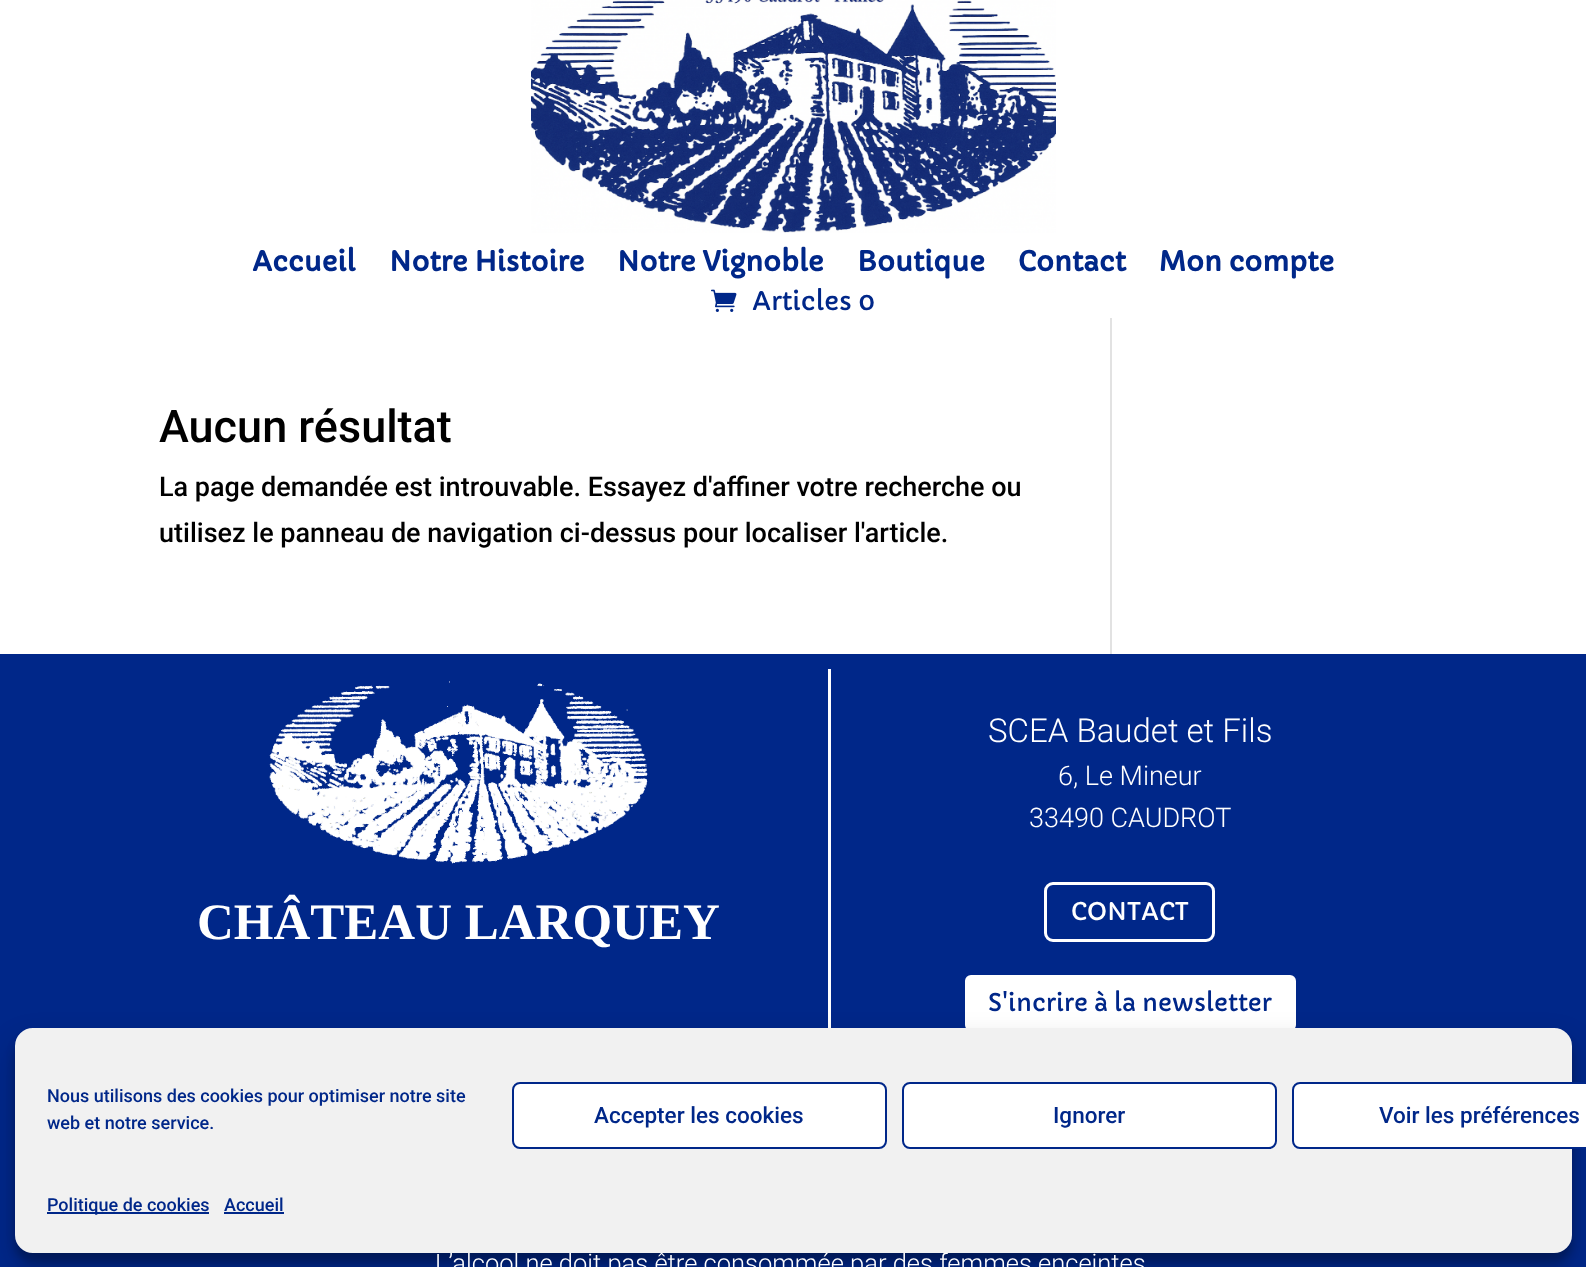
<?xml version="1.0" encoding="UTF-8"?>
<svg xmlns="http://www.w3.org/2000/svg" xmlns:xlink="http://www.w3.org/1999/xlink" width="1586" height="1267">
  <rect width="100%" height="100%" fill="#ffffff" />
  <image x="531" y="0" width="525" height="233" xlink:href="image1.png" />
  <image x="711" y="289" width="26" height="23" xlink:href="image2.png" />
  <rect x="1110" y="318" width="2" height="336" fill="#e2e2e2" />
  <rect y="654" width="1586" height="613" fill="#002789" />
  <image x="269" y="681" width="379" height="183" xlink:href="image3.png" />
  <rect x="828" y="669" width="3" height="359" fill="#ffffff" />
  <rect x="1045.5" y="883.5" width="168" height="57" rx="7.5" fill="none" stroke="#ffffff" stroke-width="3" />
  <rect x="963.5" y="973.5" width="334" height="59" rx="7.5" fill="#ffffff" stroke="#002789" stroke-width="3" />
  <rect x="15" y="1037" width="1557" height="225" rx="18" fill="#000000" fill-opacity="0.23" filter="blur(4.5px)" />
  <rect x="15" y="1043" width="1557" height="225" rx="18" fill="#000000" fill-opacity="0.19" filter="blur(15px)" />
  <text x="252" y="271" style="font-family: Capriola; font-size: 27px; font-weight: bold; fill: #002789">Accueil</text>
  <text x="389" y="271" style="font-family: Capriola; font-size: 27px; font-weight: bold; fill: #002789">Notre Histoire</text>
  <text x="617" y="271" style="font-family: Capriola; font-size: 27px; font-weight: bold; fill: #002789">Notre Vignoble</text>
  <text x="857" y="271" style="font-family: Capriola; font-size: 27px; font-weight: bold; fill: #002789">Boutique</text>
  <text x="1018" y="271" style="font-family: Capriola; font-size: 27px; font-weight: bold; fill: #002789">Contact</text>
  <text x="1159" y="271" style="font-family: Capriola; font-size: 27px; font-weight: bold; fill: #002789">Mon compte</text>
  <text x="752" y="310" style="font-family: Capriola; font-size: 25.5px; fill: #002789">Articles 0</text>
  <text x="159" y="442" style="font-family: Roboto; font-size: 45px; font-weight: 500; fill: #000000">Aucun résultat</text>
  <text x="159" y="496" style="font-family: Roboto; font-size: 27px; font-weight: 500; fill: #000000">La page demandée est introuvable. Essayez d'affiner votre recherche ou</text>
  <text x="159" y="542" style="font-family: Roboto; font-size: 27px; font-weight: 500; fill: #000000">utilisez le panneau de navigation ci-dessus pour localiser l'article.</text>
  <text x="197" y="939" style="font-family: Liberation Serif; font-size: 51px; font-weight: bold; fill: #ffffff">CHÂTEAU LARQUEY</text>
  <text x="988" y="742" style="font-family: Roboto; font-size: 33px; font-weight: 300; fill: #ffffff">SCEA Baudet et Fils</text>
  <text x="1058" y="785" style="font-family: Roboto; font-size: 27px; font-weight: 300; fill: #ffffff">6, Le Mineur</text>
  <text x="1029" y="827" style="font-family: Roboto; font-size: 27px; font-weight: 300; fill: #ffffff">33490 CAUDROT</text>
  <text x="1071" y="920" style="font-family: Capriola; font-size: 24px; fill: #ffffff">CONTACT</text>
  <text x="988" y="1011" style="font-family: Capriola; font-size: 24px; fill: #002789">S'incrire à la newsletter</text>
  <text x="435" y="1272" style="font-family: Roboto; font-size: 25.5px; font-weight: 300; fill: #ffffff">L’alcool ne doit pas être consommée par des femmes enceintes</text>
  <rect x="16" y="1029" width="1555" height="223" rx="17" fill="#f1f1f1" stroke="#f1f1f1" stroke-width="2" />
  <text x="47" y="1102" style="font-family: Roboto; font-size: 18px; font-weight: 500; fill: #002789">Nous utilisons des cookies pour optimiser notre site</text>
  <text x="47" y="1129" style="font-family: Roboto; font-size: 18px; font-weight: 500; fill: #002789">web et notre service.</text>
  <rect x="513" y="1083" width="373" height="65" rx="7" fill="#ffffff" stroke="#002789" stroke-width="2" />
  <text x="594" y="1123" style="font-family: Roboto; font-size: 22.5px; font-weight: 500; fill: #002789">Accepter les cookies</text>
  <rect x="903" y="1083" width="373" height="65" rx="7" fill="#ffffff" stroke="#002789" stroke-width="2" />
  <text x="1053" y="1123" style="font-family: Roboto; font-size: 22.5px; font-weight: 500; fill: #002789">Ignorer</text>
  <rect x="1293" y="1083" width="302" height="65" rx="7" fill="#ffffff" stroke="#002789" stroke-width="2" />
  <text x="1379" y="1123" style="font-family: Roboto; font-size: 22.5px; font-weight: 500; fill: #002789">Voir les préférences</text>
  <rect x="47" y="1212" width="162" height="2" fill="#002789" />
  <text x="47" y="1211" style="font-family: Roboto; font-size: 18px; font-weight: 500; fill: #002789">Politique de cookies</text>
  <text x="224" y="1211" style="font-family: Roboto; font-size: 18px; font-weight: 500; fill: #002789">Accueil</text>
  <rect x="224" y="1212" width="60" height="2" fill="#002789" />
</svg>
